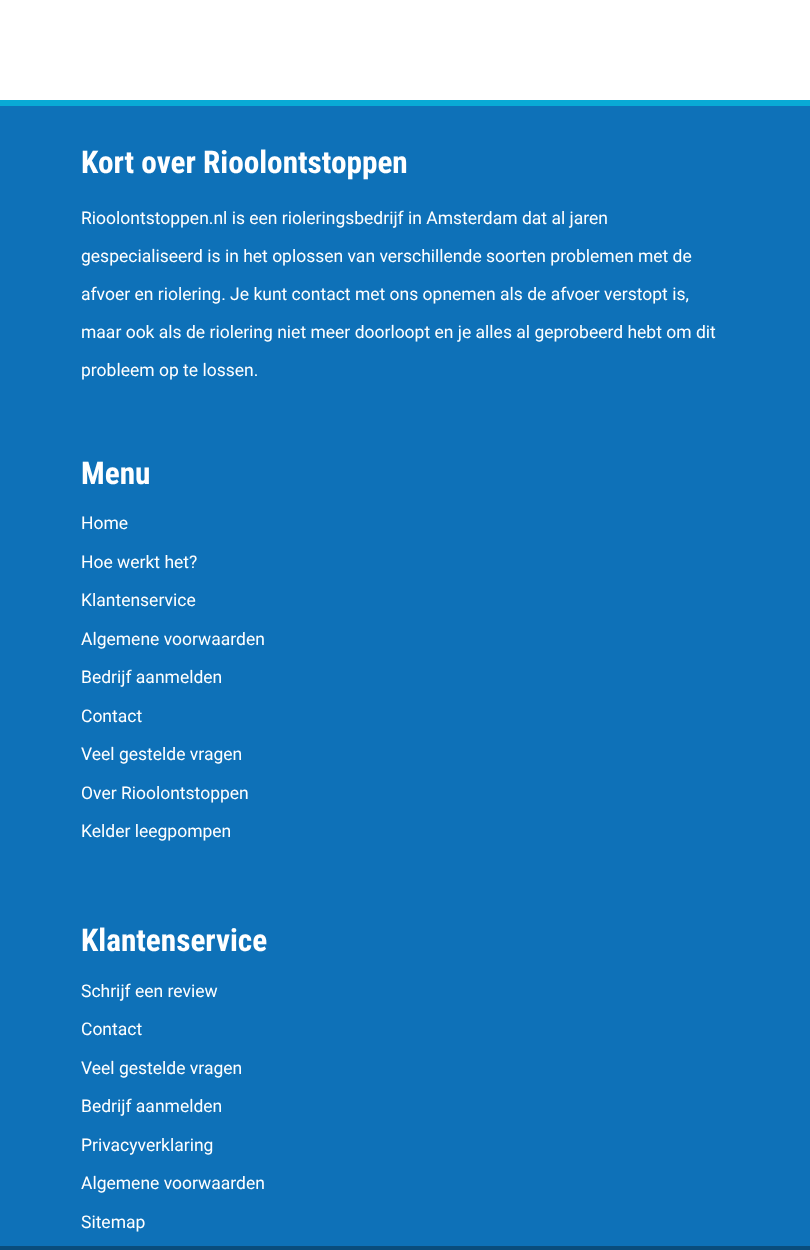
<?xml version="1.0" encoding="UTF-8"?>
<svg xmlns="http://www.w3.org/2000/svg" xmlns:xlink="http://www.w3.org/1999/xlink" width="810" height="1250">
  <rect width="100%" height="100%" fill="#0e71b8" />
  <rect width="810" height="100" fill="#ffffff" />
  <rect y="100" width="810" height="6" fill="#09a9d5" />
  <rect y="1246" width="810" height="4" fill="#0a4d7d" />
  <text x="81" y="173" style="font-family: Roboto Condensed; font-size: 31.25px; font-weight: bold; fill: #ffffff">Kort over Rioolontstoppen</text>
  <text x="81" y="224" style="font-family: Roboto; font-size: 17.5px; fill: #ffffff">Rioolontstoppen.nl is een rioleringsbedrijf in Amsterdam dat al jaren</text>
  <text x="81" y="262" style="font-family: Roboto; font-size: 17.5px; fill: #ffffff">gespecialiseerd is in het oplossen van verschillende soorten problemen met de</text>
  <text x="81" y="300" style="font-family: Roboto; font-size: 17.5px; fill: #ffffff">afvoer en riolering. Je kunt contact met ons opnemen als de afvoer verstopt is,</text>
  <text x="81" y="338" style="font-family: Roboto; font-size: 17.5px; fill: #ffffff">maar ook als de riolering niet meer doorloopt en je alles al geprobeerd hebt om dit</text>
  <text x="81" y="376" style="font-family: Roboto; font-size: 17.5px; fill: #ffffff">probleem op te lossen.</text>
  <text x="81" y="484" style="font-family: Roboto Condensed; font-size: 31.25px; font-weight: bold; fill: #ffffff">Menu</text>
  <text x="81" y="529" style="font-family: Roboto; font-size: 17.5px; fill: #ffffff">Home</text>
  <text x="81" y="568" style="font-family: Roboto; font-size: 17.5px; fill: #ffffff">Hoe werkt het?</text>
  <text x="81" y="606" style="font-family: Roboto; font-size: 17.5px; fill: #ffffff">Klantenservice</text>
  <text x="81" y="645" style="font-family: Roboto; font-size: 17.5px; fill: #ffffff">Algemene voorwaarden</text>
  <text x="81" y="683" style="font-family: Roboto; font-size: 17.5px; fill: #ffffff">Bedrijf aanmelden</text>
  <text x="81" y="722" style="font-family: Roboto; font-size: 17.5px; fill: #ffffff">Contact</text>
  <text x="81" y="760" style="font-family: Roboto; font-size: 17.5px; fill: #ffffff">Veel gestelde vragen</text>
  <text x="81" y="799" style="font-family: Roboto; font-size: 17.5px; fill: #ffffff">Over Rioolontstoppen</text>
  <text x="81" y="837" style="font-family: Roboto; font-size: 17.5px; fill: #ffffff">Kelder leegpompen</text>
  <text x="81" y="951" style="font-family: Roboto Condensed; font-size: 31.25px; font-weight: bold; fill: #ffffff">Klantenservice</text>
  <text x="81" y="997" style="font-family: Roboto; font-size: 17.5px; fill: #ffffff">Schrijf een review</text>
  <text x="81" y="1035" style="font-family: Roboto; font-size: 17.5px; fill: #ffffff">Contact</text>
  <text x="81" y="1074" style="font-family: Roboto; font-size: 17.5px; fill: #ffffff">Veel gestelde vragen</text>
  <text x="81" y="1112" style="font-family: Roboto; font-size: 17.5px; fill: #ffffff">Bedrijf aanmelden</text>
  <text x="81" y="1151" style="font-family: Roboto; font-size: 17.5px; fill: #ffffff">Privacyverklaring</text>
  <text x="81" y="1189" style="font-family: Roboto; font-size: 17.5px; fill: #ffffff">Algemene voorwaarden</text>
  <text x="81" y="1228" style="font-family: Roboto; font-size: 17.5px; fill: #ffffff">Sitemap</text>
</svg>
